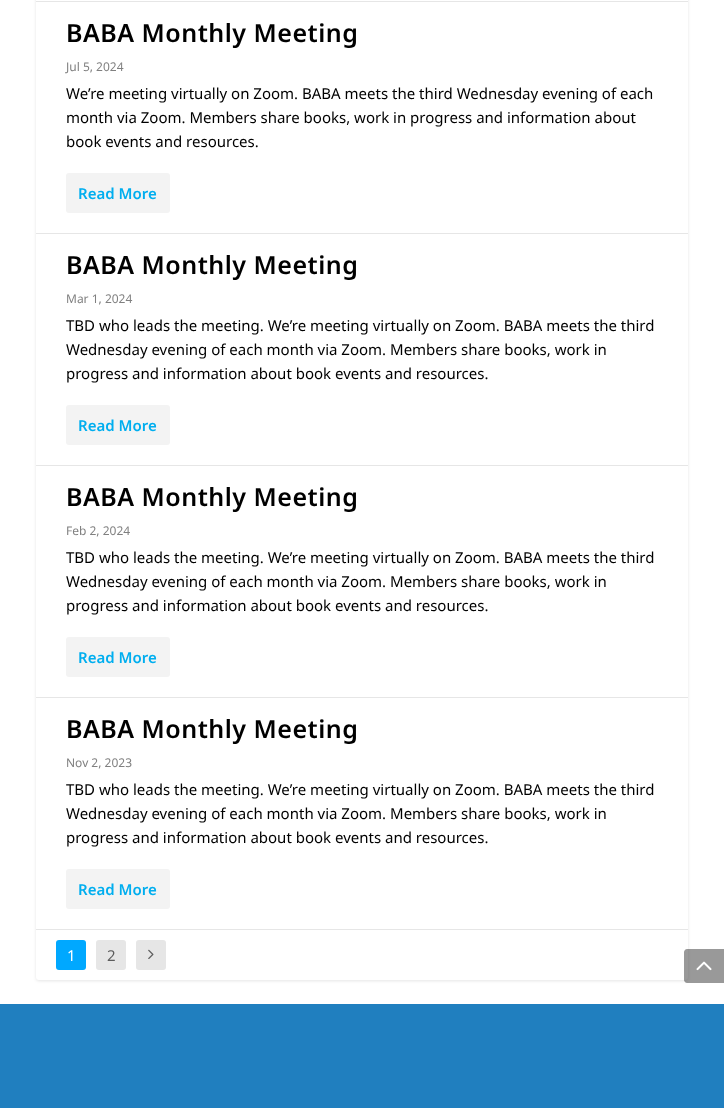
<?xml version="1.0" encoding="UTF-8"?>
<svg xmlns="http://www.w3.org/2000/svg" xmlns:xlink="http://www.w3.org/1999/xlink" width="724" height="1108">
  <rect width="100%" height="100%" fill="#ffffff" />
  <rect x="36" y="-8" width="652" height="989" rx="3" fill="#000000" fill-opacity="0.1" filter="blur(1.5px)" />
  <rect x="36" y="-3" width="652" height="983" rx="3" fill="#ffffff" />
  <rect x="36" y="1" width="652" height="1" fill="#e6e6e6" />
  <rect x="36" y="233" width="652" height="1" fill="#e6e6e6" />
  <rect x="66" y="173" width="104" height="40" rx="3" fill="#f3f3f3" />
  <rect x="36" y="465" width="652" height="1" fill="#e6e6e6" />
  <rect x="66" y="405" width="104" height="40" rx="3" fill="#f3f3f3" />
  <rect x="36" y="697" width="652" height="1" fill="#e6e6e6" />
  <rect x="66" y="637" width="104" height="40" rx="3" fill="#f3f3f3" />
  <rect x="36" y="929" width="652" height="1" fill="#e6e6e6" />
  <rect x="66" y="869" width="104" height="40" rx="3" fill="#f3f3f3" />
  <rect x="56" y="940" width="30" height="30" rx="3" fill="#00a8ff" />
  <rect x="96" y="940" width="30" height="30" rx="3" fill="#e6e6e6" />
  <rect x="136" y="940" width="30" height="30" rx="3" fill="#e6e6e6" />
  <image x="148" y="949" width="6" height="10" xlink:href="image1.png" />
  <rect y="1004" width="724" height="104" fill="#207fbf" />
  <path d="M 687 949 h 37 v 34 h -37 c -1.5 0 -3 -1.5 -3 -3 v -28 c 0 -1.5 1.5 -3 3 -3 z" fill="#000000" fill-opacity="0.4" />
  <image x="696" y="961" width="16" height="10" xlink:href="image2.png" />
  <text x="66" y="42" style="font-family: Noto Sans; font-size: 25px; font-weight: 600; letter-spacing: 0.5px; fill: #000000">BABA Monthly Meeting</text>
  <text x="66" y="71" style="font-family: Noto Sans; font-size: 12px; fill: #808080">Jul 5, 2024</text>
  <text x="66" y="99" style="font-family: Noto Sans; font-size: 15px; fill: #000000">We’re meeting virtually on Zoom. BABA meets the third Wednesday evening of each</text>
  <text x="66" y="123" style="font-family: Noto Sans; font-size: 15px; fill: #000000">month via Zoom. Members share books, work in progress and information about</text>
  <text x="66" y="147" style="font-family: Noto Sans; font-size: 15px; fill: #000000">book events and resources.</text>
  <text x="78" y="199" style="font-family: Noto Sans; font-size: 15px; font-weight: 600; fill: #00aeef">Read More</text>
  <text x="66" y="274" style="font-family: Noto Sans; font-size: 25px; font-weight: 600; letter-spacing: 0.5px; fill: #000000">BABA Monthly Meeting</text>
  <text x="66" y="303" style="font-family: Noto Sans; font-size: 12px; fill: #808080">Mar 1, 2024</text>
  <text x="66" y="331" style="font-family: Noto Sans; font-size: 15px; fill: #000000">TBD who leads the meeting. We’re meeting virtually on Zoom. BABA meets the third</text>
  <text x="66" y="355" style="font-family: Noto Sans; font-size: 15px; fill: #000000">Wednesday evening of each month via Zoom. Members share books, work in</text>
  <text x="66" y="379" style="font-family: Noto Sans; font-size: 15px; fill: #000000">progress and information about book events and resources.</text>
  <text x="78" y="431" style="font-family: Noto Sans; font-size: 15px; font-weight: 600; fill: #00aeef">Read More</text>
  <text x="66" y="506" style="font-family: Noto Sans; font-size: 25px; font-weight: 600; letter-spacing: 0.5px; fill: #000000">BABA Monthly Meeting</text>
  <text x="66" y="535" style="font-family: Noto Sans; font-size: 12px; fill: #808080">Feb 2, 2024</text>
  <text x="66" y="563" style="font-family: Noto Sans; font-size: 15px; fill: #000000">TBD who leads the meeting. We’re meeting virtually on Zoom. BABA meets the third</text>
  <text x="66" y="587" style="font-family: Noto Sans; font-size: 15px; fill: #000000">Wednesday evening of each month via Zoom. Members share books, work in</text>
  <text x="66" y="611" style="font-family: Noto Sans; font-size: 15px; fill: #000000">progress and information about book events and resources.</text>
  <text x="78" y="663" style="font-family: Noto Sans; font-size: 15px; font-weight: 600; fill: #00aeef">Read More</text>
  <text x="66" y="738" style="font-family: Noto Sans; font-size: 25px; font-weight: 600; letter-spacing: 0.5px; fill: #000000">BABA Monthly Meeting</text>
  <text x="66" y="767" style="font-family: Noto Sans; font-size: 12px; fill: #808080">Nov 2, 2023</text>
  <text x="66" y="795" style="font-family: Noto Sans; font-size: 15px; fill: #000000">TBD who leads the meeting. We’re meeting virtually on Zoom. BABA meets the third</text>
  <text x="66" y="819" style="font-family: Noto Sans; font-size: 15px; fill: #000000">Wednesday evening of each month via Zoom. Members share books, work in</text>
  <text x="66" y="843" style="font-family: Noto Sans; font-size: 15px; fill: #000000">progress and information about book events and resources.</text>
  <text x="78" y="895" style="font-family: Noto Sans; font-size: 15px; font-weight: 600; fill: #00aeef">Read More</text>
  <text x="67" y="961" style="font-family: Noto Sans; font-size: 15px; fill: #ffffff">1</text>
  <text x="107" y="961" style="font-family: Noto Sans; font-size: 15px; fill: #5c5c5c">2</text>
</svg>
